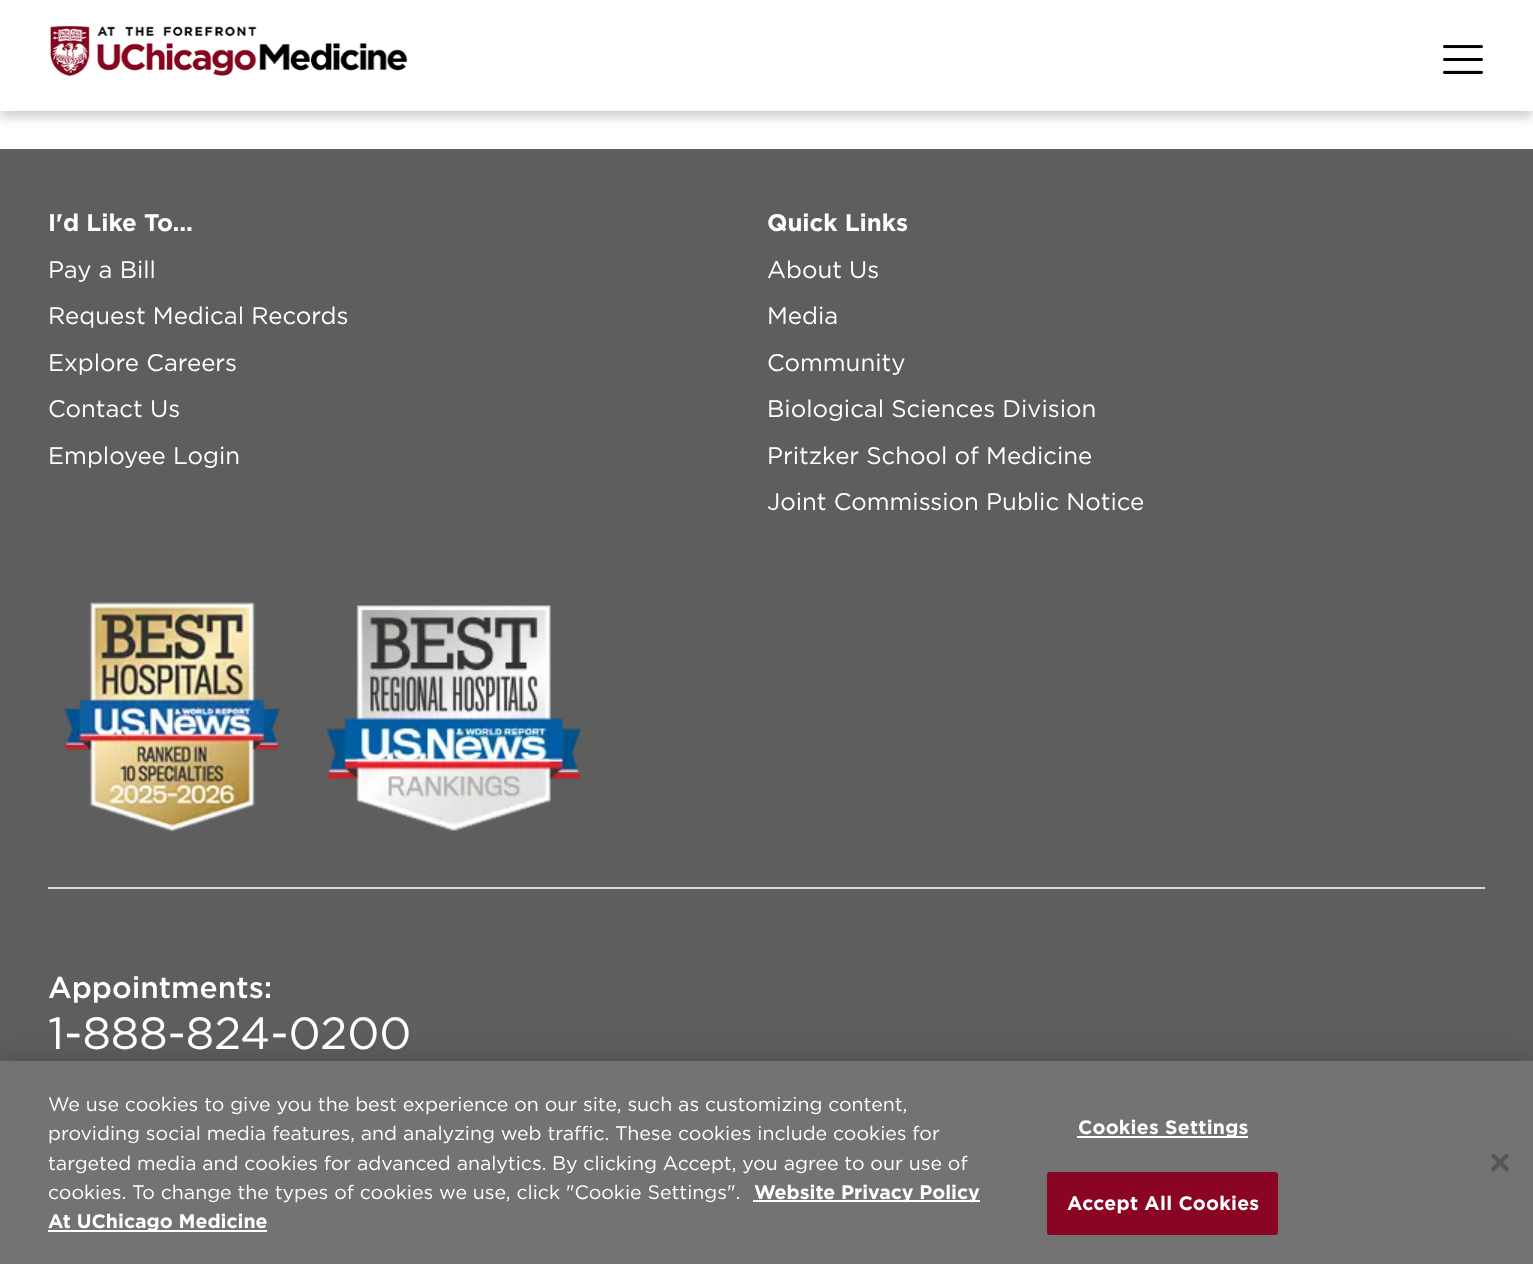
<?xml version="1.0" encoding="UTF-8"?>
<svg xmlns="http://www.w3.org/2000/svg" xmlns:xlink="http://www.w3.org/1999/xlink" width="1533" height="1264">
  <rect width="100%" height="100%" fill="#ffffff" />
  <rect y="6" width="1533" height="111" fill="#000000" fill-opacity="0.1" filter="blur(6px)" />
  <rect width="1533" height="117" fill="#000000" fill-opacity="0.1" filter="blur(6px)" />
  <rect width="1533" height="111" fill="#ffffff" />
  <image x="50" y="25" width="358" height="51" xlink:href="image1.png" />
  <image x="1443" y="45" width="40" height="29" xlink:href="image2.png" />
  <rect y="149" width="1533" height="912" fill="#5e5e5e" />
  <rect x="48" y="887" width="1437" height="2" fill="#d9d9d9" />
  <image x="64" y="602" width="216" height="230" xlink:href="image3.png" />
  <image x="327" y="605" width="254" height="226" xlink:href="image4.png" />
  <rect y="1061" width="1533" height="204" fill="#000000" fill-opacity="0.2" filter="blur(13.5px)" />
  <rect y="1061" width="1533" height="203" fill="#737373" />
  <rect x="753" y="1200" width="227" height="2" fill="#ffffff" />
  <rect x="48" y="1230" width="219" height="2" fill="#ffffff" />
  <rect x="1077" y="1136" width="171" height="2" fill="#ffffff" />
  <rect x="1048" y="1173" width="229" height="61" rx="2" fill="#8a0424" stroke="#8a0424" stroke-width="2" />
  <image x="1491" y="1154" width="18" height="18" xlink:href="image5.png" />
  <text x="48" y="231" style="font-family: Gotham; font-size: 24px; font-weight: bold; fill: #ffffff">I'd Like To...</text>
  <text x="48" y="278" style="font-family: Gotham; font-size: 24px; fill: #ffffff">Pay a Bill</text>
  <text x="48" y="324" style="font-family: Gotham; font-size: 24px; fill: #ffffff">Request Medical Records</text>
  <text x="48" y="371" style="font-family: Gotham; font-size: 24px; fill: #ffffff">Explore Careers</text>
  <text x="48" y="417" style="font-family: Gotham; font-size: 24px; fill: #ffffff">Contact Us</text>
  <text x="48" y="464" style="font-family: Gotham; font-size: 24px; fill: #ffffff">Employee Login</text>
  <text x="767" y="231" style="font-family: Gotham; font-size: 24px; font-weight: bold; fill: #ffffff">Quick Links</text>
  <text x="767" y="278" style="font-family: Gotham; font-size: 24px; fill: #ffffff">About Us</text>
  <text x="767" y="324" style="font-family: Gotham; font-size: 24px; fill: #ffffff">Media</text>
  <text x="767" y="371" style="font-family: Gotham; font-size: 24px; fill: #ffffff">Community</text>
  <text x="767" y="417" style="font-family: Gotham; font-size: 24px; fill: #ffffff">Biological Sciences Division</text>
  <text x="767" y="464" style="font-family: Gotham; font-size: 24px; fill: #ffffff">Pritzker School of Medicine</text>
  <text x="767" y="510" style="font-family: Gotham; font-size: 24px; fill: #ffffff">Joint Commission Public Notice</text>
  <text x="48" y="998" style="font-family: Gotham; font-size: 30px; font-weight: 500; fill: #ffffff">Appointments:</text>
  <text x="48" y="1049" style="font-family: Gotham; font-size: 45px; fill: #ffffff">1-888-824-0200</text>
  <text x="48" y="1111" style="font-family: Gotham; font-size: 19.5px; fill: #ffffff">We use cookies to give you the best experience on our site, such as customizing content,</text>
  <text x="48" y="1140" style="font-family: Gotham; font-size: 19.5px; fill: #ffffff">providing social media features, and analyzing web traffic.</text>
  <text x="615" y="1140" style="font-family: Gotham; font-size: 19.5px; fill: #ffffff">These cookies include cookies for</text>
  <text x="48" y="1170" style="font-family: Gotham; font-size: 19.5px; fill: #ffffff">targeted media and cookies for advanced analytics.</text>
  <text x="552" y="1170" style="font-family: Gotham; font-size: 19.5px; fill: #ffffff">By clicking Accept, you agree to our use of</text>
  <text x="48" y="1199" style="font-family: Gotham; font-size: 19.5px; fill: #ffffff">cookies. To change the types of cookies we use, click "Cookie Settings".</text>
  <text x="754" y="1199" style="font-family: Gotham; font-size: 19.5px; font-weight: bold; fill: #ffffff">Website Privacy Policy</text>
  <text x="48" y="1228" style="font-family: Gotham; font-size: 19.5px; font-weight: bold; fill: #ffffff">At UChicago Medicine</text>
  <text x="1078" y="1134" style="font-family: Gotham; font-size: 19.5px; font-weight: bold; letter-spacing: 0.25px; fill: #ffffff">Cookies Settings</text>
  <text x="1067" y="1210" style="font-family: Gotham; font-size: 19.5px; font-weight: bold; letter-spacing: 0.25px; fill: #ffffff">Accept All Cookies</text>
</svg>
